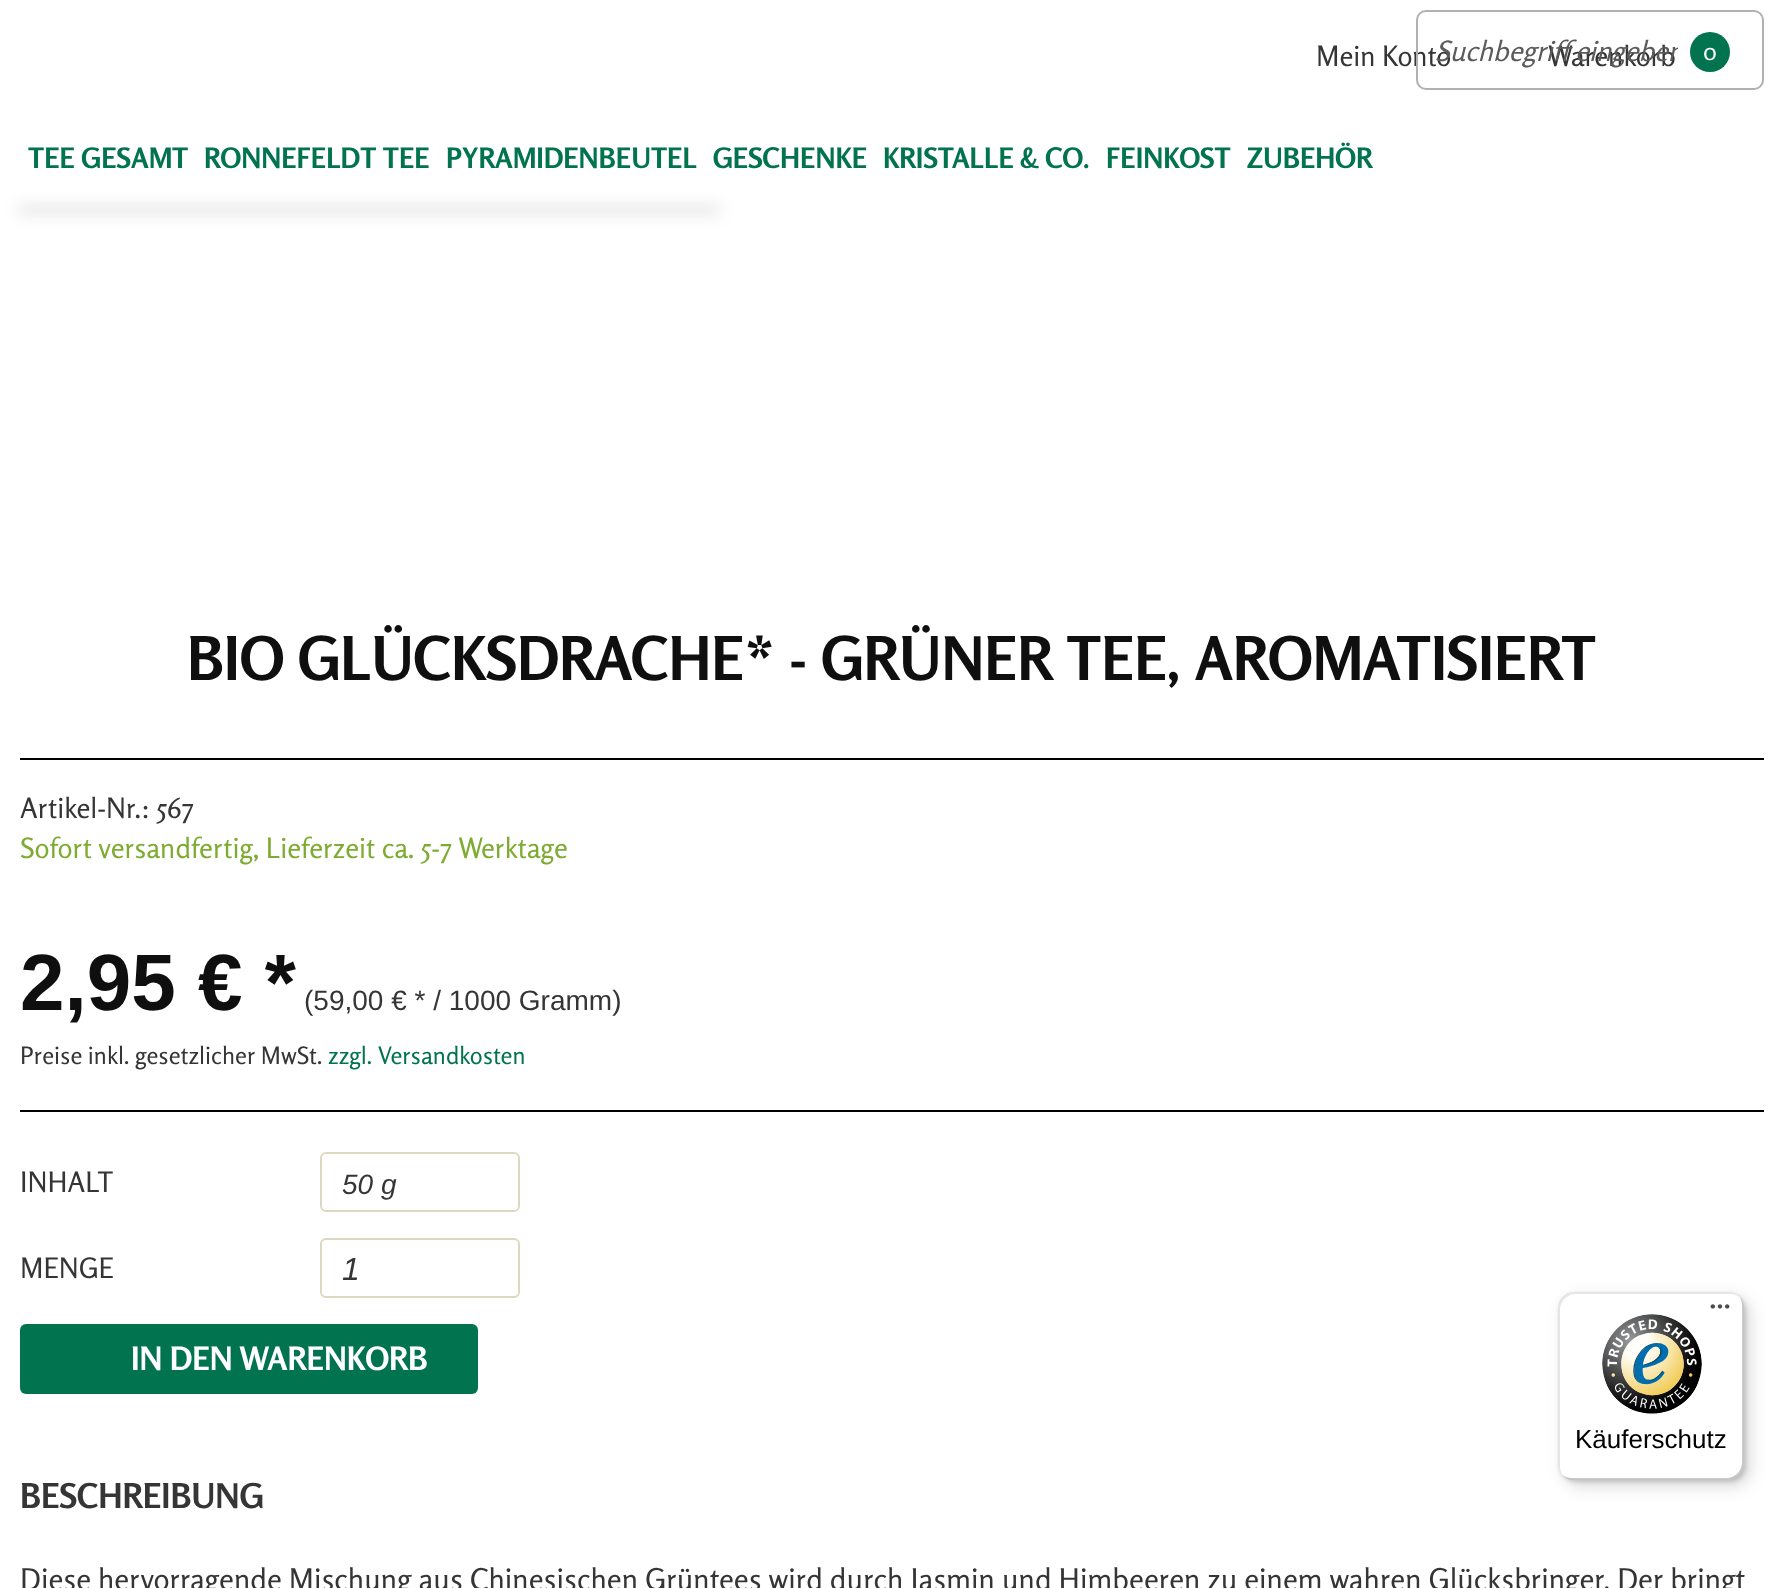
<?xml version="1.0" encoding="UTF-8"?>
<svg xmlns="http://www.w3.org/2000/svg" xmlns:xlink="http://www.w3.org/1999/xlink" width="1783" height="1588">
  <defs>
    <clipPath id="clip1"><rect x="1436" y="34" width="242" height="34" /></clipPath>
  </defs>
  <rect width="100%" height="100%" fill="#ffffff" />
  <rect x="18" y="208" width="702" height="4" fill="#000000" fill-opacity="0.25" filter="blur(8px)" />
  <circle cx="1710" cy="52" r="20" fill="#01734f" />
  <rect x="20" y="758" width="1744" height="2" fill="#000000" />
  <rect x="20" y="1110" width="1744" height="2" fill="#000000" />
  <rect x="321" y="1153" width="198" height="58" rx="5" fill="none" stroke="#ddd9c0" stroke-width="2" />
  <rect x="321" y="1239" width="198" height="58" rx="5" fill="none" stroke="#ddd9c0" stroke-width="2" />
  <rect x="20" y="1324" width="458" height="70" rx="6" fill="#01734f" />
  <rect x="1564" y="1298" width="186" height="188" rx="16" fill="#000000" fill-opacity="0.15" filter="blur(8px)" />
  <rect x="1560" y="1294" width="186" height="188" rx="16" fill="#000000" fill-opacity="0.15" filter="blur(2px)" />
  <rect x="1558" y="1292" width="186" height="188" rx="16" fill="#ffffff" />
  <path d="M 1576 1294 h 154 c 4 0 7 1 10 3 c -3 -3 -7 -5 -12 -5 h -154 c -9 0 -16 7 -16 16 v 156 c 0 5 2 9 5 12 c -2 -3 -3 -6 -3 -10 v -156 c 0 -9 7 -16 16 -16 z" fill="#000000" fill-opacity="0.1" />
  <path d="M 1562 1475 c 3 3 7 5 12 5 h 154 c 9 0 16 -7 16 -16 v -156 c 0 -5 -2 -9 -5 -12 c 2 3 3 6 3 10 v 156 c 0 9 -7 16 -16 16 h -154 c -4 0 -7 -1 -10 -3 z" fill="#000000" fill-opacity="0.2" />
  <path d="M 1563 1475 c 3 3 7 5 11 5 h 154 c 9 0 16 -7 16 -16 v -156 c 0 -4 -2 -8 -5 -11 c 3 3 4 6 4 10 v 156 c 0 9 -7 16 -16 16 h -154 c -4 0 -7 -1 -10 -4 z" fill="#323232" fill-opacity="0.2" />
  <path d="M 1563 1475 c 3 3 7 5 11 5 h 154 c 9 0 16 -7 16 -16 v -156 c 0 -4 -2 -8 -5 -11 c 3 3 4 6 4 10 v 156 c 0 9 -7 16 -16 16 h -154 c -4 0 -7 -1 -10 -4 z" fill="#ffffff" fill-opacity="0.3" />
  <image x="1710" y="1304" width="20" height="5" xlink:href="image1.png" />
  <image x="1602" y="1314" width="100" height="100" xlink:href="image2.png" />
  <text x="28" y="168" style="font-family: Rosario; font-size: 28px; font-weight: bold; fill: #01734f">TEE GESAMT</text>
  <text x="204" y="168" style="font-family: Rosario; font-size: 28px; font-weight: bold; fill: #01734f">RONNEFELDT TEE</text>
  <text x="446" y="168" style="font-family: Rosario; font-size: 28px; font-weight: bold; fill: #01734f">PYRAMIDENBEUTEL</text>
  <text x="713" y="168" style="font-family: Rosario; font-size: 28px; font-weight: bold; fill: #01734f">GESCHENKE</text>
  <text x="883" y="168" style="font-family: Rosario; font-size: 28px; font-weight: bold; fill: #01734f">KRISTALLE &amp; CO.</text>
  <text x="1106" y="168" style="font-family: Rosario; font-size: 28px; font-weight: bold; fill: #01734f">FEINKOST</text>
  <text x="1247" y="168" style="font-family: Rosario; font-size: 28px; font-weight: bold; fill: #01734f">ZUBEHÖR</text>
  <text x="1316" y="66" style="font-family: Rosario; font-size: 28px; fill: #353535">Mein Konto</text>
  <rect x="1417" y="11" width="346" height="78" rx="9" fill="none" stroke="#b1b1b1" stroke-width="2" />
  <text x="1548" y="66" style="font-family: Rosario; font-size: 28px; fill: #353535">Warenkorb</text>
  <g clip-path="url(#clip1)">
    <text x="1435" y="61" style="font-family: Rosario; font-size: 28px; font-style: italic; fill: #5b5b5b">Suchbegriff eingeben</text>
  </g>
  <text x="1703" y="60" style="font-family: Rosario; font-size: 24px; fill: #ffffff">0</text>
  <text x="187" y="680" style="font-family: Rosario; font-size: 60px; font-weight: bold; fill: #0f0f0f">BIO GLÜCKSDRACHE* - GRÜNER TEE, AROMATISIERT</text>
  <text x="20" y="818" style="font-family: Rosario; font-size: 28px; fill: #353535">Artikel-Nr.: 567</text>
  <text x="20" y="858" style="font-family: Rosario; font-size: 28px; fill: #7eac32">Sofort versandfertig, Lieferzeit ca. 5-7 Werktage</text>
  <text x="20" y="1010" style="font-family: Liberation Sans; font-size: 80px; font-weight: bold; fill: #0f0f0f">2,95 € *</text>
  <text x="304" y="1010" style="font-family: Liberation Sans; font-size: 28px; fill: #353535">(59,00 € * / 1000 Gramm)</text>
  <text x="20" y="1064" style="font-family: Rosario; font-size: 24px; fill: #353535">Preise inkl. gesetzlicher MwSt.</text>
  <text x="328" y="1064" style="font-family: Rosario; font-size: 24px; fill: #01734f">zzgl. Versandkosten</text>
  <text x="20" y="1192" style="font-family: Rosario; font-size: 28px; fill: #353535">INHALT</text>
  <text x="342" y="1194" style="font-family: Liberation Sans; font-size: 28px; font-style: italic; fill: #353535">50 g</text>
  <text x="20" y="1278" style="font-family: Rosario; font-size: 28px; fill: #353535">MENGE</text>
  <text x="342" y="1280" style="font-family: Liberation Sans; font-size: 32px; font-style: italic; fill: #353535">1</text>
  <text x="131" y="1370" style="font-family: Rosario; font-size: 32px; font-weight: bold; fill: #ffffff">IN DEN WARENKORB</text>
  <text x="20" y="1508" style="font-family: Rosario; font-size: 34px; font-weight: bold; fill: #353535">BESCHREIBUNG</text>
  <text x="20" y="1590" style="font-family: Rosario; font-size: 30px; fill: #353535">Diese hervorragende Mischung aus Chinesischen Grüntees wird durch Jasmin und Himbeeren zu einem wahren Glücksbringer. Der bringt</text>
  <text x="1575" y="1448" style="font-family: Liberation Sans; font-size: 26px; fill: #000000">Käuferschutz</text>
</svg>
